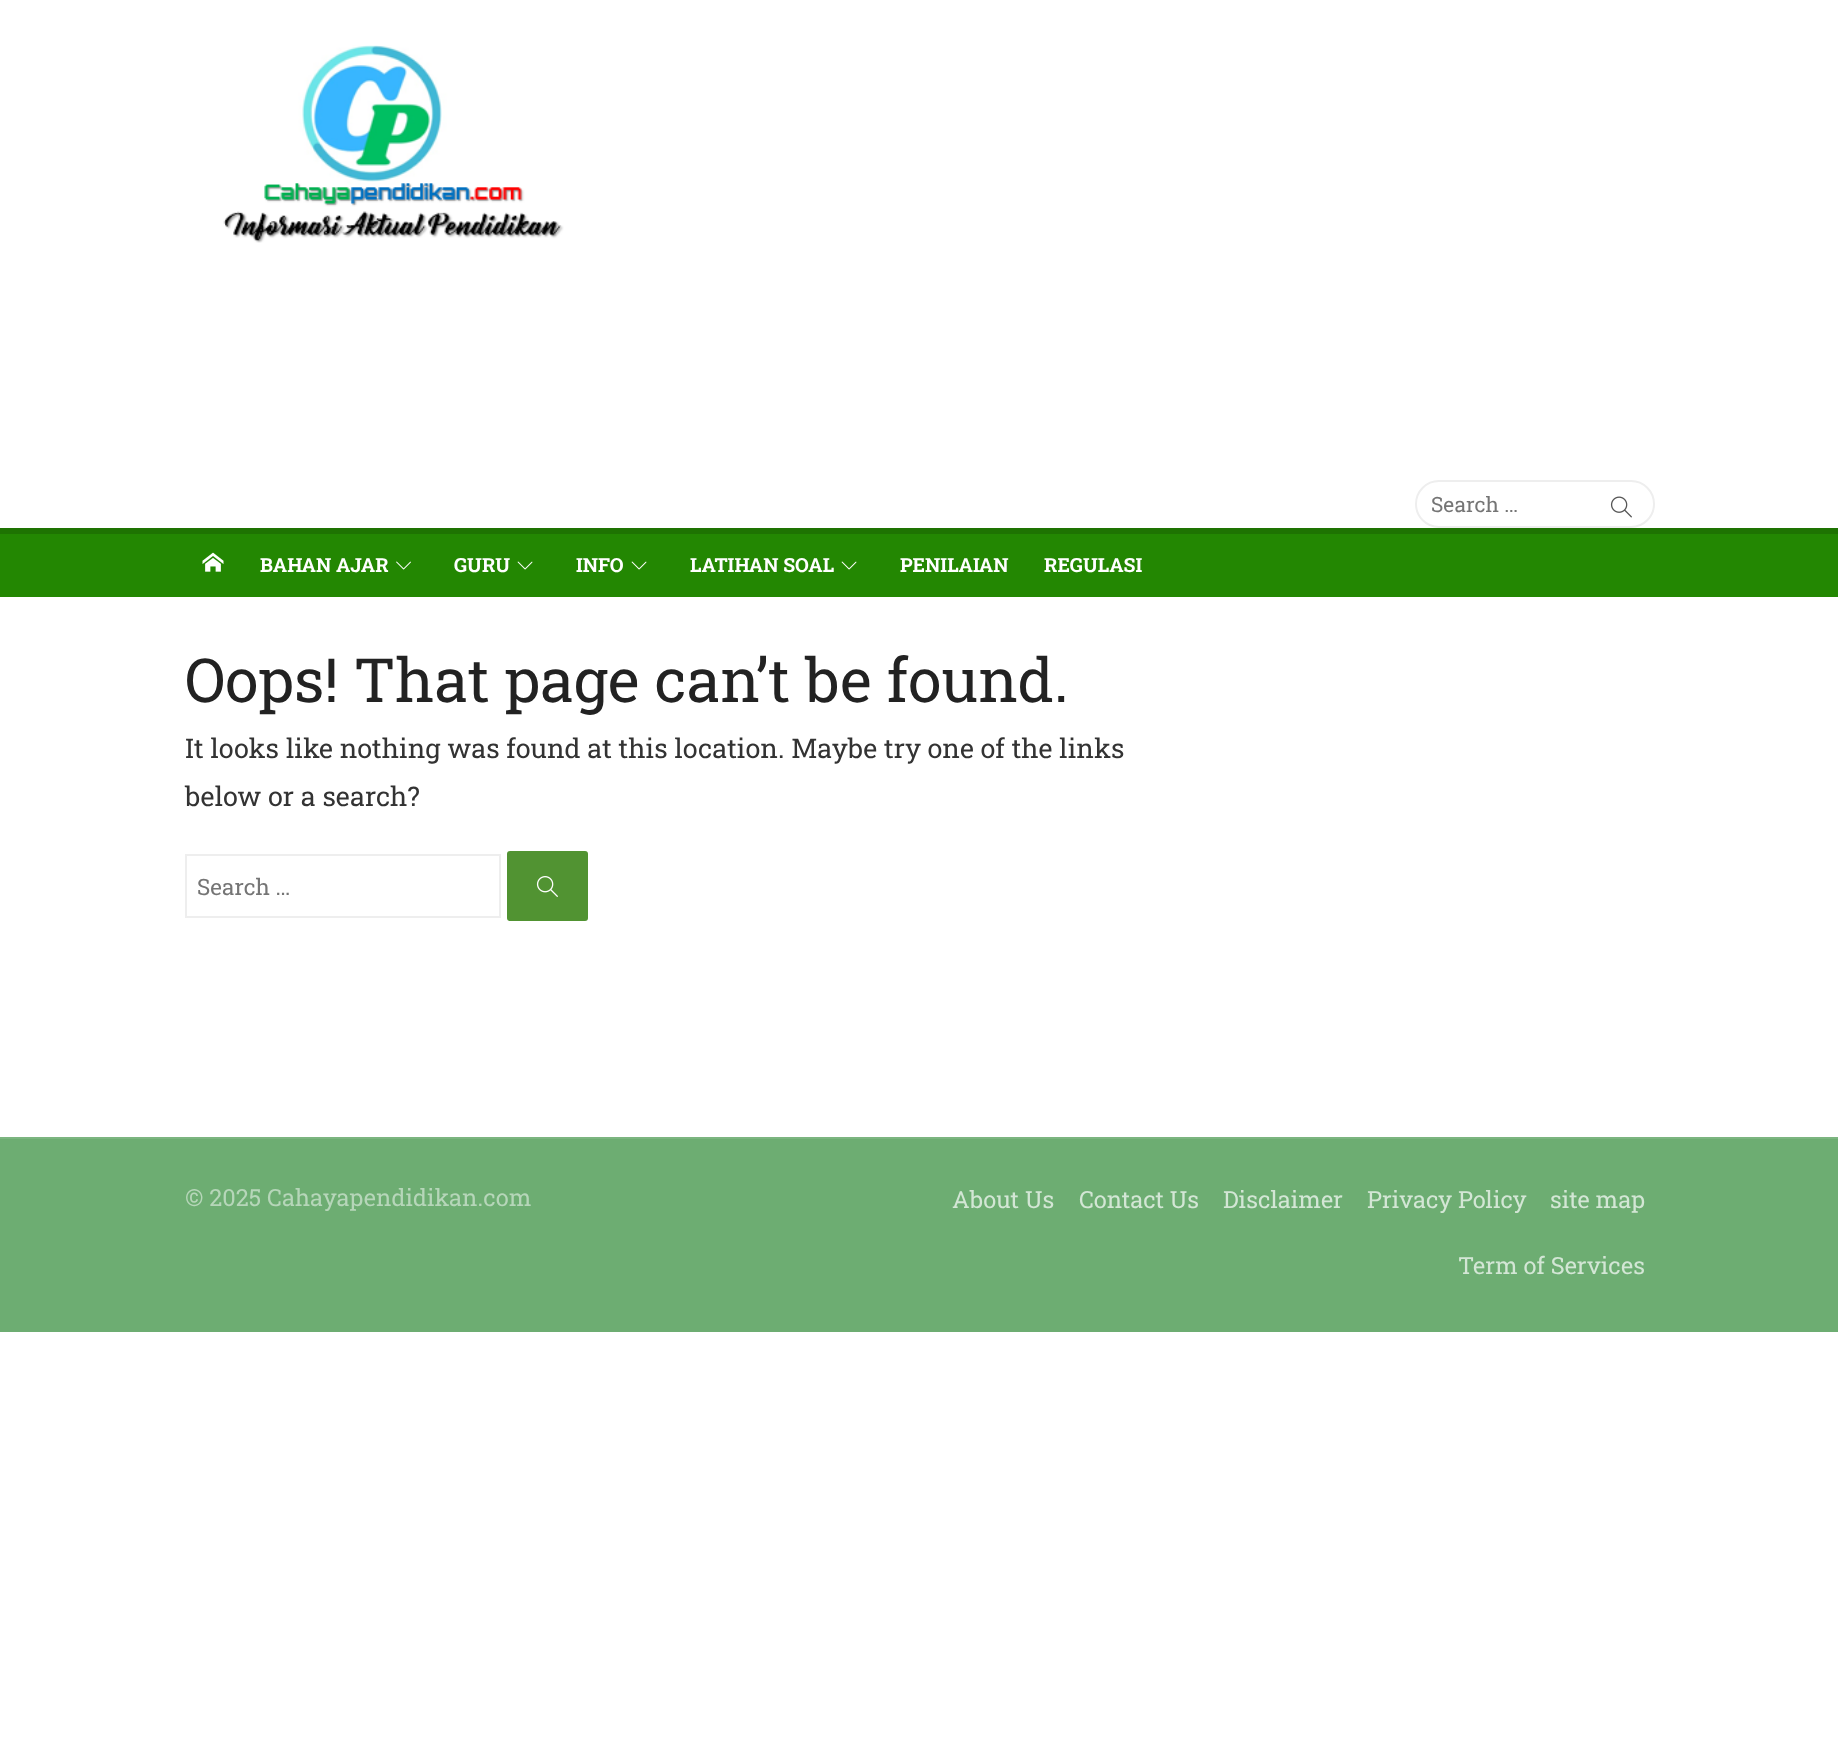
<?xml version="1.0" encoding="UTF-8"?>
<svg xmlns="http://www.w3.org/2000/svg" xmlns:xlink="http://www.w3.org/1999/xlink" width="1838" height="1760">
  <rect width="100%" height="100%" fill="#ffffff" />
  <image x="223" y="45" width="341" height="198" xlink:href="image1.png" />
  <rect x="1416" y="481" width="238" height="46" rx="23" fill="none" stroke="#eeeeee" stroke-width="2" />
  <image x="1610" y="496" width="22" height="22" xlink:href="image2.png" />
  <rect y="534" width="1838" height="63" fill="#238702" />
  <rect y="528" width="1838" height="6" fill="#1e7302" />
  <image x="202" y="552" width="22" height="20" xlink:href="image3.png" />
  <image x="396" y="561" width="15" height="9" xlink:href="image4.png" />
  <image x="517" y="561" width="16" height="9" xlink:href="image5.png" />
  <image x="631" y="561" width="16" height="9" xlink:href="image5.png" />
  <image x="841" y="561" width="16" height="9" xlink:href="image5.png" />
  <rect x="186" y="855" width="314" height="62" fill="none" stroke="#eeeeee" stroke-width="2" />
  <rect x="507" y="851" width="81" height="70" rx="3" fill="#519332" />
  <image x="536" y="876" width="22" height="21" xlink:href="image6.png" />
  <rect y="1139" width="1838" height="193" fill="#6dad72" />
  <rect y="1137" width="1838" height="2" fill="#7cb580" />
  <text x="1431" y="512" style="font-family: Roboto Slab; font-size: 21px; fill: #757575">Search …</text>
  <text x="260" y="572" style="font-family: Roboto Slab; font-size: 19.5px; font-weight: bold; fill: #ffffff">BAHAN AJAR</text>
  <text x="454" y="572" style="font-family: Roboto Slab; font-size: 19.5px; font-weight: bold; fill: #ffffff">GURU</text>
  <text x="576" y="572" style="font-family: Roboto Slab; font-size: 19.5px; font-weight: bold; fill: #ffffff">INFO</text>
  <text x="690" y="572" style="font-family: Roboto Slab; font-size: 19.5px; font-weight: bold; fill: #ffffff">LATIHAN SOAL</text>
  <text x="900" y="572" style="font-family: Roboto Slab; font-size: 19.5px; font-weight: bold; fill: #ffffff">PENILAIAN</text>
  <text x="1044" y="572" style="font-family: Roboto Slab; font-size: 19.5px; font-weight: bold; fill: #ffffff">REGULASI</text>
  <text x="185" y="702" style="font-family: Roboto Slab; font-size: 60.75px; fill: #222222">Oops! That page can’t be found.</text>
  <text x="185" y="758" style="font-family: Roboto Slab; font-size: 27px; fill: #333333">It looks like nothing was found at this location. Maybe try one of the links</text>
  <text x="185" y="806" style="font-family: Roboto Slab; font-size: 27px; fill: #333333">below or a search?</text>
  <text x="197" y="895" style="font-family: Roboto Slab; font-size: 22.5px; fill: #757575">Search …</text>
  <text x="185" y="1206" style="font-family: Roboto Slab; font-size: 23.6px; fill: #b6d6b9">© 2025 Cahayapendidikan.com</text>
  <text x="952" y="1208" style="font-family: Roboto Slab; font-size: 23.6px; fill: #d3e6d5">About Us</text>
  <text x="1079" y="1208" style="font-family: Roboto Slab; font-size: 23.6px; fill: #d3e6d5">Contact Us</text>
  <text x="1223" y="1208" style="font-family: Roboto Slab; font-size: 23.6px; fill: #d3e6d5">Disclaimer</text>
  <text x="1367" y="1208" style="font-family: Roboto Slab; font-size: 23.6px; fill: #d3e6d5">Privacy Policy</text>
  <text x="1550" y="1208" style="font-family: Roboto Slab; font-size: 23.6px; fill: #d3e6d5">site map</text>
  <text x="1458" y="1274" style="font-family: Roboto Slab; font-size: 23.6px; fill: #d3e6d5">Term of Services</text>
</svg>
